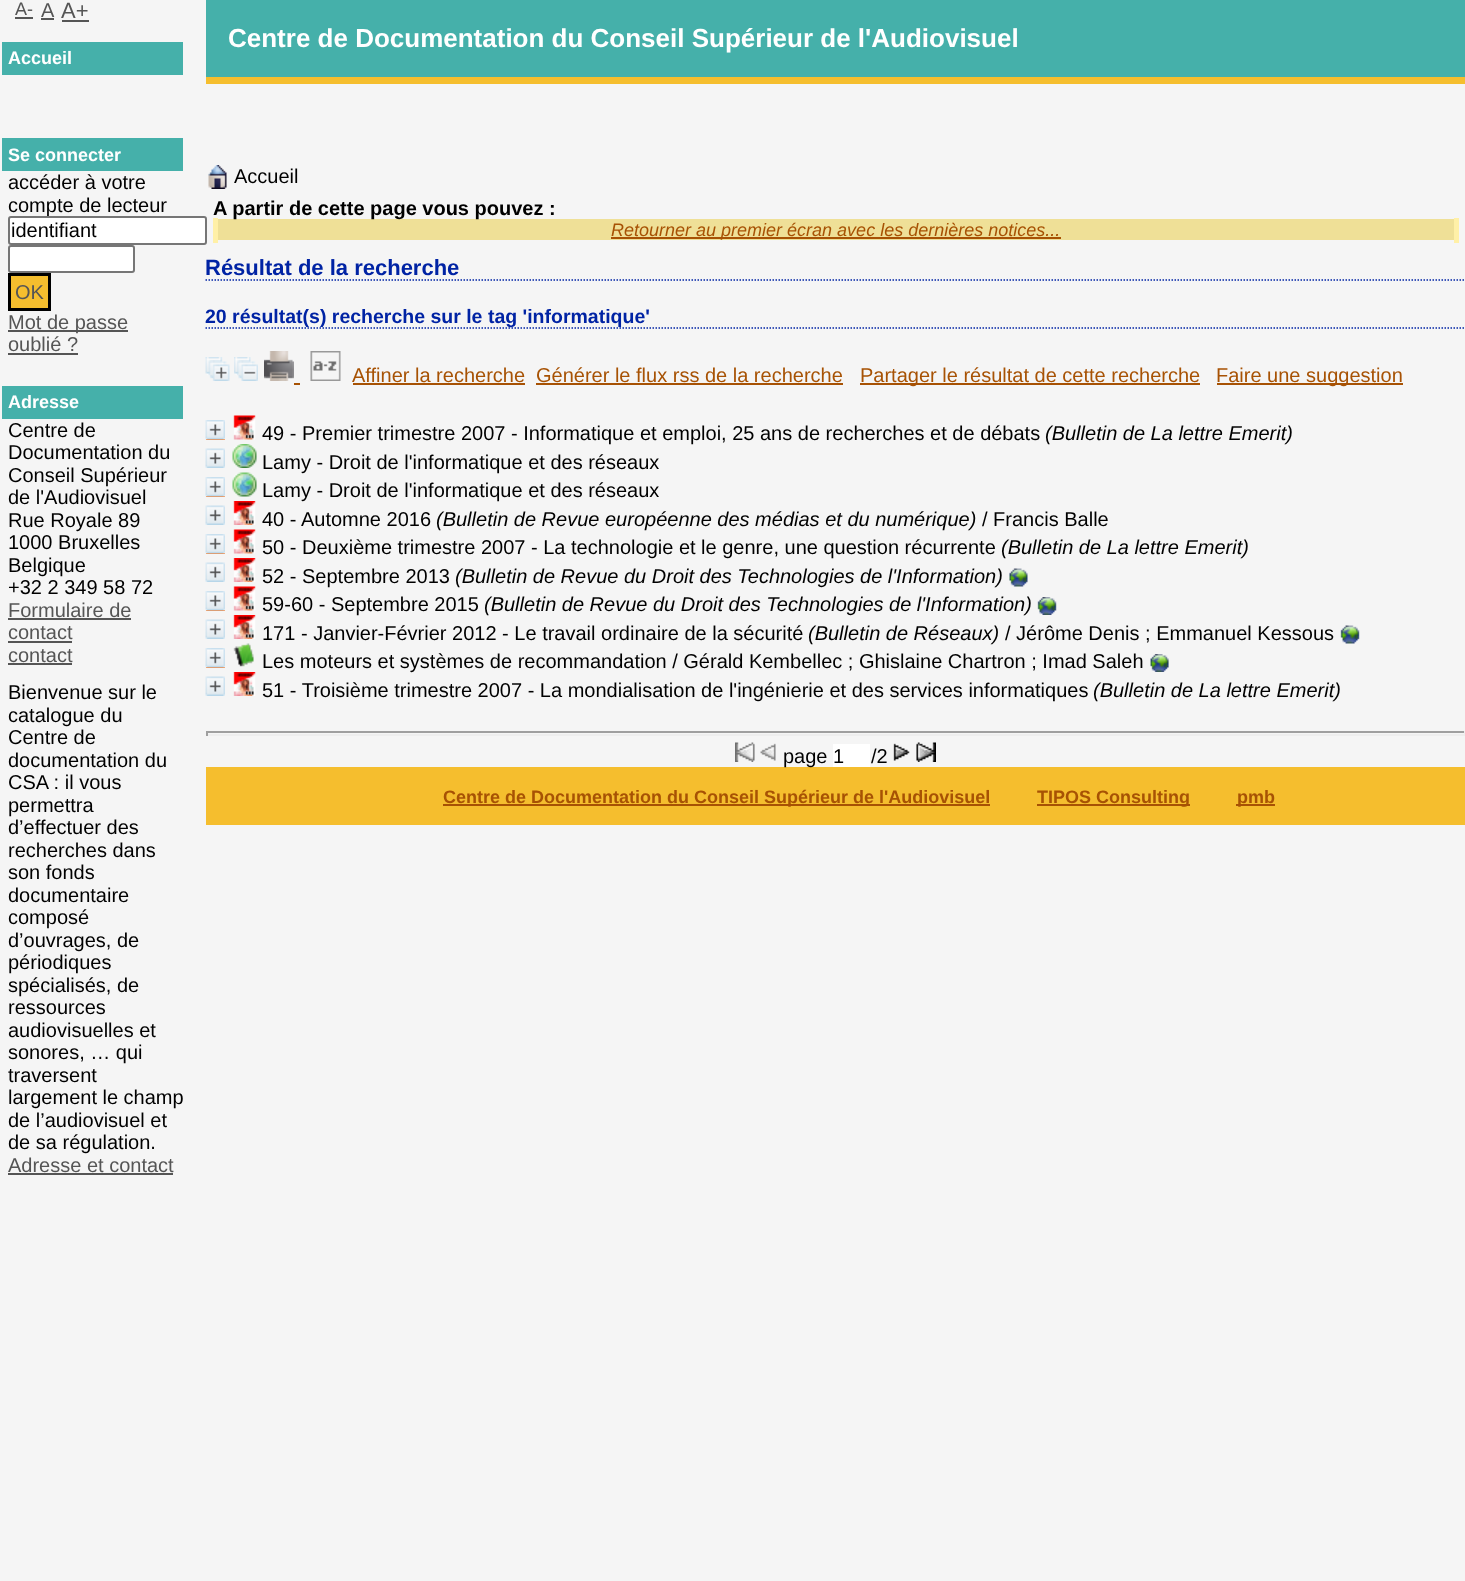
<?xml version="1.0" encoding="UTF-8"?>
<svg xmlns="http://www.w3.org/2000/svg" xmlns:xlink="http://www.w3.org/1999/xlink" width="1465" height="1581">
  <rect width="100%" height="100%" fill="#f5f5f5" />
  <rect x="15" y="17" width="18" height="2" fill="#555555" />
  <rect x="41" y="18" width="13" height="2" fill="#555555" />
  <rect x="62" y="20" width="27" height="2" fill="#555555" />
  <rect x="2" y="42" width="181" height="33" fill="#45b0aa" />
  <rect x="2" y="138" width="181" height="33" fill="#45b0aa" />
  <rect x="9" y="246" width="125" height="26" rx="2" fill="#ffffff" stroke="#767676" stroke-width="2" />
  <rect x="9.5" y="274.5" width="40" height="35" fill="#f5be2e" stroke="#000000" stroke-width="3" />
  <rect x="8" y="330" width="120" height="2" fill="#555555" />
  <rect x="8" y="353" width="70" height="2" fill="#555555" />
  <rect x="2" y="386" width="181" height="33" fill="#45b0aa" />
  <rect x="8" y="618" width="123" height="2" fill="#555555" />
  <rect x="8" y="641" width="64" height="2" fill="#555555" />
  <rect x="8" y="663" width="64" height="2" fill="#555555" />
  <rect x="8" y="1173" width="165" height="2" fill="#555555" />
  <rect x="206" width="1259" height="77" fill="#45b0aa" />
  <rect x="206" y="77" width="1259" height="7" fill="#f5be2e" />
  <image x="208" y="165" width="19" height="24" xlink:href="image1.png" />
  <rect x="218" y="219" width="1236" height="21" fill="#efe097" />
  <rect x="1454" y="218" width="5" height="25" fill="#fff0a7" />
  <rect x="213" y="218" width="5" height="25" fill="#fff0a7" />
  <rect x="611" y="237" width="450" height="2" fill="#a75204" />
  <path d="M 205.5 280 h 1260" fill="none" stroke="#0023a4" stroke-width="1.5" stroke-dasharray="1.5 1.5" />
  <path d="M 205.5 328 h 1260" fill="none" stroke="#0023a4" stroke-width="1.5" stroke-dasharray="1.5 1.5" />
  <image x="205" y="357" width="25" height="24" xlink:href="image2.png" />
  <image x="234" y="357" width="24" height="24" xlink:href="image3.png" />
  <image x="264" y="351" width="30" height="30" xlink:href="image4.png" />
  <rect x="294" y="383" width="6" height="2" fill="#a75204" />
  <image x="310" y="351" width="31" height="30" xlink:href="image5.png" />
  <rect x="353" y="383" width="172" height="2" fill="#a75204" />
  <rect x="536" y="383" width="307" height="2" fill="#a75204" />
  <rect x="860" y="383" width="340" height="2" fill="#a75204" />
  <rect x="1217" y="383" width="186" height="2" fill="#a75204" />
  <rect x="206" y="439" width="19" height="1" fill="#ff6600" />
  <image x="205" y="420" width="20" height="20" xlink:href="image6.png" />
  <image x="233" y="415" width="23" height="25" xlink:href="image7.png" />
  <image x="205" y="448" width="20" height="20" xlink:href="image8.png" />
  <image x="232" y="444" width="25" height="24" xlink:href="image9.png" />
  <rect x="206" y="496" width="19" height="1" fill="#ff6600" />
  <image x="205" y="477" width="20" height="20" xlink:href="image6.png" />
  <image x="232" y="472" width="25" height="25" xlink:href="image10.png" />
  <image x="205" y="505" width="20" height="20" xlink:href="image8.png" />
  <image x="233" y="501" width="23" height="24" xlink:href="image11.png" />
  <rect x="206" y="553" width="19" height="1" fill="#ff6600" />
  <image x="205" y="534" width="20" height="20" xlink:href="image6.png" />
  <image x="233" y="529" width="23" height="25" xlink:href="image7.png" />
  <image x="205" y="562" width="20" height="20" xlink:href="image8.png" />
  <image x="233" y="558" width="23" height="24" xlink:href="image11.png" />
  <image x="1009" y="568" width="19" height="19" xlink:href="image12.png" />
  <rect x="206" y="610" width="19" height="1" fill="#ff6600" />
  <image x="205" y="591" width="20" height="20" xlink:href="image6.png" />
  <image x="233" y="586" width="23" height="25" xlink:href="image7.png" />
  <image x="1037" y="597" width="20" height="18" xlink:href="image13.png" />
  <image x="205" y="619" width="20" height="20" xlink:href="image8.png" />
  <image x="233" y="615" width="23" height="24" xlink:href="image11.png" />
  <image x="1340" y="625" width="20" height="19" xlink:href="image14.png" />
  <rect x="206" y="667" width="19" height="1" fill="#ff6600" />
  <image x="205" y="648" width="20" height="20" xlink:href="image6.png" />
  <image x="233" y="643" width="21" height="24" xlink:href="image15.png" />
  <image x="1150" y="654" width="19" height="18" xlink:href="image16.png" />
  <image x="205" y="676" width="20" height="20" xlink:href="image8.png" />
  <image x="233" y="672" width="23" height="24" xlink:href="image11.png" />
  <rect x="206" y="731" width="1259" height="2" fill="#9f9f9f" />
  <rect x="1464" y="731" width="1" height="5" fill="#eeeeee" />
  <rect x="206" y="734" width="1259" height="2" fill="#eeeeee" />
  <rect x="206" y="731" width="2" height="5" fill="#9f9f9f" />
  <image x="735" y="742" width="20" height="20" xlink:href="image17.png" />
  <image x="760" y="743" width="16" height="18" xlink:href="image18.png" />
  <rect x="833" y="744" width="37" height="23" fill="#ffffff" />
  <image x="893" y="743" width="17" height="18" xlink:href="image19.png" />
  <image x="916" y="742" width="20" height="20" xlink:href="image20.png" />
  <rect x="206" y="767" width="1259" height="58" fill="#f5be2e" />
  <rect x="443" y="804" width="547" height="2" fill="#a75204" />
  <rect x="1037" y="804" width="153" height="2" fill="#a75204" />
  <rect x="1236" y="804" width="39" height="2" fill="#a75204" />
  <text x="15" y="15" style="font-family: Liberation Sans; font-size: 18px; fill: #555555">A-</text>
  <text x="41" y="17" style="font-family: Liberation Sans; font-size: 20px; fill: #555555">A</text>
  <text x="61" y="18" style="font-family: Liberation Sans; font-size: 22px; fill: #555555">A+</text>
  <text x="8" y="64" style="font-family: Liberation Sans; font-size: 18px; font-weight: bold; fill: #ffffff">Accueil</text>
  <text x="8" y="161" style="font-family: Liberation Sans; font-size: 18px; font-weight: bold; fill: #ffffff">Se connecter</text>
  <text x="8" y="189" style="font-family: Liberation Sans; font-size: 20px; fill: #000000">accéder à votre</text>
  <text x="8" y="212" style="font-family: Liberation Sans; font-size: 20px; fill: #000000">compte de lecteur</text>
  <rect x="9" y="217" width="197" height="27" rx="2" fill="#ffffff" stroke="#767676" stroke-width="2" />
  <text x="11" y="237" style="font-family: Liberation Sans; font-size: 20px; fill: #000000">identifiant</text>
  <text x="15" y="299" style="font-family: Liberation Sans; font-size: 20px; fill: #555555">OK</text>
  <text x="8" y="329" style="font-family: Liberation Sans; font-size: 20px; fill: #555555">Mot de passe</text>
  <text x="8" y="351" style="font-family: Liberation Sans; font-size: 20px; fill: #555555">oublié ?</text>
  <text x="8" y="408" style="font-family: Liberation Sans; font-size: 18px; font-weight: bold; fill: #ffffff">Adresse</text>
  <text x="8" y="437" style="font-family: Liberation Sans; font-size: 20px; fill: #000000">Centre de</text>
  <text x="8" y="459" style="font-family: Liberation Sans; font-size: 20px; fill: #000000">Documentation du</text>
  <text x="8" y="482" style="font-family: Liberation Sans; font-size: 20px; fill: #000000">Conseil Supérieur</text>
  <text x="8" y="504" style="font-family: Liberation Sans; font-size: 20px; fill: #000000">de l'Audiovisuel</text>
  <text x="8" y="527" style="font-family: Liberation Sans; font-size: 20px; fill: #000000">Rue Royale 89</text>
  <text x="8" y="549" style="font-family: Liberation Sans; font-size: 20px; fill: #000000">1000 Bruxelles</text>
  <text x="8" y="572" style="font-family: Liberation Sans; font-size: 20px; fill: #000000">Belgique</text>
  <text x="8" y="594" style="font-family: Liberation Sans; font-size: 20px; fill: #000000">+32 2 349 58 72</text>
  <text x="8" y="617" style="font-family: Liberation Sans; font-size: 20px; fill: #555555">Formulaire de</text>
  <text x="8" y="639" style="font-family: Liberation Sans; font-size: 20px; fill: #555555">contact</text>
  <text x="8" y="662" style="font-family: Liberation Sans; font-size: 20px; fill: #555555">contact</text>
  <text x="8" y="699" style="font-family: Liberation Sans; font-size: 20px; fill: #000000">Bienvenue sur le</text>
  <text x="8" y="722" style="font-family: Liberation Sans; font-size: 20px; fill: #000000">catalogue du</text>
  <text x="8" y="744" style="font-family: Liberation Sans; font-size: 20px; fill: #000000">Centre de</text>
  <text x="8" y="767" style="font-family: Liberation Sans; font-size: 20px; fill: #000000">documentation du</text>
  <text x="8" y="789" style="font-family: Liberation Sans; font-size: 20px; fill: #000000">CSA : il vous</text>
  <text x="8" y="812" style="font-family: Liberation Sans; font-size: 20px; fill: #000000">permettra</text>
  <text x="8" y="834" style="font-family: Liberation Sans; font-size: 20px; fill: #000000">d’effectuer des</text>
  <text x="8" y="857" style="font-family: Liberation Sans; font-size: 20px; fill: #000000">recherches dans</text>
  <text x="8" y="879" style="font-family: Liberation Sans; font-size: 20px; fill: #000000">son fonds</text>
  <text x="8" y="902" style="font-family: Liberation Sans; font-size: 20px; fill: #000000">documentaire</text>
  <text x="8" y="924" style="font-family: Liberation Sans; font-size: 20px; fill: #000000">composé</text>
  <text x="8" y="947" style="font-family: Liberation Sans; font-size: 20px; fill: #000000">d’ouvrages, de</text>
  <text x="8" y="969" style="font-family: Liberation Sans; font-size: 20px; fill: #000000">périodiques</text>
  <text x="8" y="992" style="font-family: Liberation Sans; font-size: 20px; fill: #000000">spécialisés, de</text>
  <text x="8" y="1014" style="font-family: Liberation Sans; font-size: 20px; fill: #000000">ressources</text>
  <text x="8" y="1037" style="font-family: Liberation Sans; font-size: 20px; fill: #000000">audiovisuelles et</text>
  <text x="8" y="1059" style="font-family: Liberation Sans; font-size: 20px; fill: #000000">sonores, … qui</text>
  <text x="8" y="1082" style="font-family: Liberation Sans; font-size: 20px; fill: #000000">traversent</text>
  <text x="8" y="1104" style="font-family: Liberation Sans; font-size: 20px; fill: #000000">largement le champ</text>
  <text x="8" y="1127" style="font-family: Liberation Sans; font-size: 20px; fill: #000000">de l’audiovisuel et</text>
  <text x="8" y="1149" style="font-family: Liberation Sans; font-size: 20px; fill: #000000">de sa régulation.</text>
  <text x="8" y="1172" style="font-family: Liberation Sans; font-size: 20px; fill: #555555">Adresse et contact</text>
  <text x="228" y="47" style="font-family: Liberation Sans; font-size: 26px; font-weight: bold; fill: #ffffff">Centre de Documentation du Conseil Supérieur de l'Audiovisuel</text>
  <text x="234" y="183" style="font-family: Liberation Sans; font-size: 20px; fill: #000000">Accueil</text>
  <text x="213" y="215" style="font-family: Liberation Sans; font-size: 20px; font-weight: bold; fill: #000000">A partir de cette page vous pouvez :</text>
  <text x="611" y="236" style="font-family: Liberation Sans; font-size: 18px; font-style: italic; fill: #a75204">Retourner au premier écran avec les dernières notices...</text>
  <text x="205" y="275" style="font-family: Liberation Sans; font-size: 22px; font-weight: bold; fill: #0023a4">Résultat de la recherche</text>
  <text x="205" y="323" style="font-family: Liberation Sans; font-size: 19.5px; font-weight: bold; fill: #0023a4">20 résultat(s) recherche sur le tag 'informatique'</text>
  <text x="352" y="382" style="font-family: Liberation Sans; font-size: 20px; fill: #a75204">Affiner la recherche</text>
  <text x="536" y="382" style="font-family: Liberation Sans; font-size: 20px; fill: #a75204">Générer le flux rss de la recherche</text>
  <text x="860" y="382" style="font-family: Liberation Sans; font-size: 20px; fill: #a75204">Partager le résultat de cette recherche</text>
  <text x="1216" y="382" style="font-family: Liberation Sans; font-size: 20px; fill: #a75204">Faire une suggestion</text>
  <text x="262" y="440" style="font-family: Liberation Sans; font-size: 20px; fill: #000000">49 - Premier trimestre 2007 - Informatique et emploi, 25 ans de recherches et de débats</text>
  <text x="1045" y="440" style="font-family: Liberation Sans; font-size: 20px; font-style: italic; fill: #000000">(Bulletin de La lettre Emerit)</text>
  <text x="262" y="469" style="font-family: Liberation Sans; font-size: 20px; fill: #000000">Lamy - Droit de l'informatique et des réseaux</text>
  <text x="262" y="497" style="font-family: Liberation Sans; font-size: 20px; fill: #000000">Lamy - Droit de l'informatique et des réseaux</text>
  <text x="262" y="526" style="font-family: Liberation Sans; font-size: 20px; fill: #000000">40 - Automne 2016</text>
  <text x="436" y="526" style="font-family: Liberation Sans; font-size: 20px; font-style: italic; fill: #000000">(Bulletin de Revue européenne des médias et du numérique)</text>
  <text x="982" y="526" style="font-family: Liberation Sans; font-size: 20px; fill: #000000">/ Francis Balle</text>
  <text x="262" y="554" style="font-family: Liberation Sans; font-size: 20px; fill: #000000">50 - Deuxième trimestre 2007 - La technologie et le genre, une question récurrente</text>
  <text x="1001" y="554" style="font-family: Liberation Sans; font-size: 20px; font-style: italic; fill: #000000">(Bulletin de La lettre Emerit)</text>
  <text x="262" y="583" style="font-family: Liberation Sans; font-size: 20px; fill: #000000">52 - Septembre 2013</text>
  <text x="455" y="583" style="font-family: Liberation Sans; font-size: 20px; font-style: italic; fill: #000000">(Bulletin de Revue du Droit des Technologies de l'Information)</text>
  <text x="262" y="611" style="font-family: Liberation Sans; font-size: 20px; fill: #000000">59-60 - Septembre 2015</text>
  <text x="484" y="611" style="font-family: Liberation Sans; font-size: 20px; font-style: italic; fill: #000000">(Bulletin de Revue du Droit des Technologies de l'Information)</text>
  <text x="262" y="640" style="font-family: Liberation Sans; font-size: 20px; fill: #000000">171 - Janvier-Février 2012 - Le travail ordinaire de la sécurité</text>
  <text x="808" y="640" style="font-family: Liberation Sans; font-size: 20px; font-style: italic; fill: #000000">(Bulletin de Réseaux)</text>
  <text x="1005" y="640" style="font-family: Liberation Sans; font-size: 20px; fill: #000000">/ Jérôme Denis ; Emmanuel Kessous</text>
  <text x="262" y="668" style="font-family: Liberation Sans; font-size: 20px; fill: #000000">Les moteurs et systèmes de recommandation / Gérald Kembellec ; Ghislaine Chartron ; Imad Saleh</text>
  <text x="262" y="697" style="font-family: Liberation Sans; font-size: 20px; fill: #000000">51 - Troisième trimestre 2007 - La mondialisation de l'ingénierie et des services informatiques</text>
  <text x="1093" y="697" style="font-family: Liberation Sans; font-size: 20px; font-style: italic; fill: #000000">(Bulletin de La lettre Emerit)</text>
  <text x="783" y="763" style="font-family: Liberation Sans; font-size: 20px; fill: #000000">page</text>
  <text x="833" y="763" style="font-family: Liberation Sans; font-size: 20px; fill: #000000">1</text>
  <text x="871" y="763" style="font-family: Liberation Sans; font-size: 20px; fill: #000000">/2</text>
  <text x="443" y="803" style="font-family: Liberation Sans; font-size: 18px; font-weight: bold; fill: #a75204">Centre de Documentation du Conseil Supérieur de l'Audiovisuel</text>
  <text x="1037" y="803" style="font-family: Liberation Sans; font-size: 18px; font-weight: bold; fill: #a75204">TIPOS Consulting</text>
  <text x="1237" y="803" style="font-family: Liberation Sans; font-size: 18px; font-weight: bold; fill: #a75204">pmb</text>
</svg>
